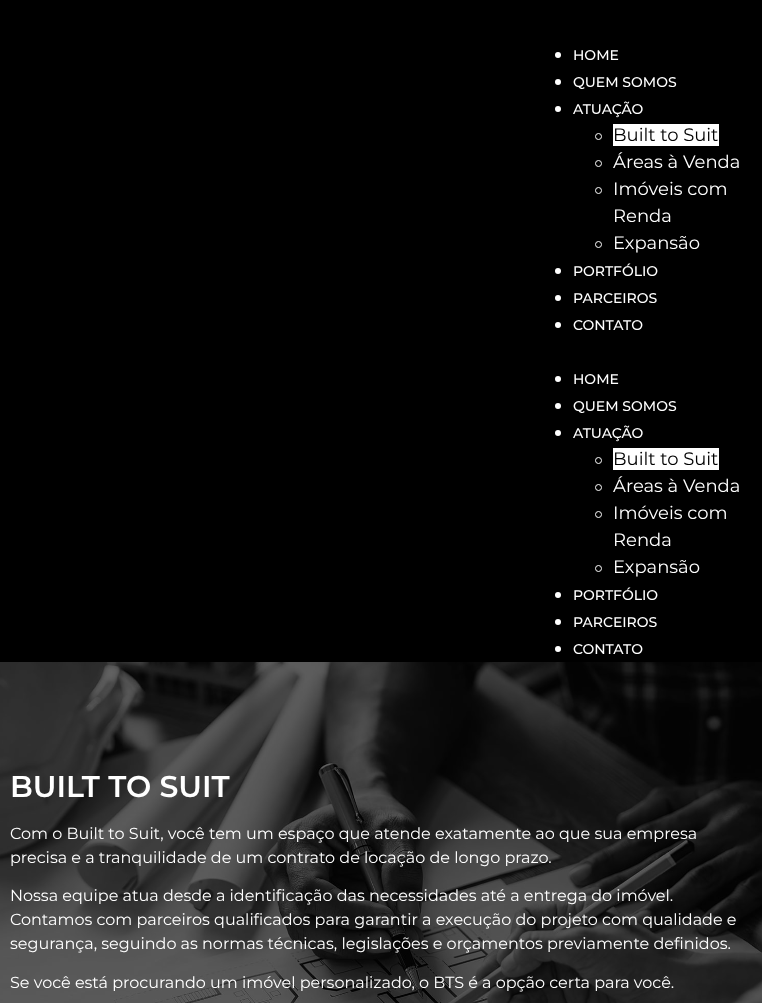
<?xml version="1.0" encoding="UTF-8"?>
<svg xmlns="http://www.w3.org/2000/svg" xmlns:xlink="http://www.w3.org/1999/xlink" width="762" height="1003">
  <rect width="100%" height="100%" fill="#000000" />
  <circle cx="558" cy="55" r="3" fill="#ffffff" />
  <circle cx="558" cy="82" r="3" fill="#ffffff" />
  <circle cx="558" cy="109" r="3" fill="#ffffff" />
  <circle cx="598.5" cy="136.5" r="3" fill="none" stroke="#ffffff" />
  <rect x="613" y="124" width="106" height="22" fill="#ffffff" />
  <circle cx="598.5" cy="163.5" r="3" fill="none" stroke="#ffffff" />
  <circle cx="598.5" cy="190.5" r="3" fill="none" stroke="#ffffff" />
  <circle cx="598.5" cy="244.5" r="3" fill="none" stroke="#ffffff" />
  <circle cx="558" cy="271" r="3" fill="#ffffff" />
  <circle cx="558" cy="298" r="3" fill="#ffffff" />
  <circle cx="558" cy="325" r="3" fill="#ffffff" />
  <circle cx="558" cy="379" r="3" fill="#ffffff" />
  <circle cx="558" cy="406" r="3" fill="#ffffff" />
  <circle cx="558" cy="433" r="3" fill="#ffffff" />
  <circle cx="598.5" cy="460.5" r="3" fill="none" stroke="#ffffff" />
  <rect x="613" y="448" width="106" height="22" fill="#ffffff" />
  <circle cx="598.5" cy="487.5" r="3" fill="none" stroke="#ffffff" />
  <circle cx="598.5" cy="514.5" r="3" fill="none" stroke="#ffffff" />
  <circle cx="598.5" cy="568.5" r="3" fill="none" stroke="#ffffff" />
  <circle cx="558" cy="595" r="3" fill="#ffffff" />
  <circle cx="558" cy="622" r="3" fill="#ffffff" />
  <circle cx="558" cy="649" r="3" fill="#ffffff" />
  <image x="0" y="662" width="762" height="341" xlink:href="image1.png" />
  <text x="573" y="60" style="font-family: Montserrat; font-size: 14px; font-weight: 500; fill: #ffffff">HOME</text>
  <text x="573" y="87" style="font-family: Montserrat; font-size: 14px; font-weight: 500; fill: #ffffff">QUEM SOMOS</text>
  <text x="573" y="114" style="font-family: Montserrat; font-size: 14px; font-weight: 500; fill: #ffffff">ATUAÇÃO</text>
  <text x="613" y="141" style="font-family: Montserrat; font-size: 18px; fill: #000000">Built to Suit</text>
  <text x="613" y="168" style="font-family: Montserrat; font-size: 18px; fill: #ffffff">Áreas à Venda</text>
  <text x="613" y="195" style="font-family: Montserrat; font-size: 18px; fill: #ffffff">Imóveis com</text>
  <text x="613" y="222" style="font-family: Montserrat; font-size: 18px; fill: #ffffff">Renda</text>
  <text x="613" y="249" style="font-family: Montserrat; font-size: 18px; fill: #ffffff">Expansão</text>
  <text x="573" y="276" style="font-family: Montserrat; font-size: 14px; font-weight: 500; fill: #ffffff">PORTFÓLIO</text>
  <text x="573" y="303" style="font-family: Montserrat; font-size: 14px; font-weight: 500; fill: #ffffff">PARCEIROS</text>
  <text x="573" y="330" style="font-family: Montserrat; font-size: 14px; font-weight: 500; fill: #ffffff">CONTATO</text>
  <text x="573" y="384" style="font-family: Montserrat; font-size: 14px; font-weight: 500; fill: #ffffff">HOME</text>
  <text x="573" y="411" style="font-family: Montserrat; font-size: 14px; font-weight: 500; fill: #ffffff">QUEM SOMOS</text>
  <text x="573" y="438" style="font-family: Montserrat; font-size: 14px; font-weight: 500; fill: #ffffff">ATUAÇÃO</text>
  <text x="613" y="465" style="font-family: Montserrat; font-size: 18px; fill: #000000">Built to Suit</text>
  <text x="613" y="492" style="font-family: Montserrat; font-size: 18px; fill: #ffffff">Áreas à Venda</text>
  <text x="613" y="519" style="font-family: Montserrat; font-size: 18px; fill: #ffffff">Imóveis com</text>
  <text x="613" y="546" style="font-family: Montserrat; font-size: 18px; fill: #ffffff">Renda</text>
  <text x="613" y="573" style="font-family: Montserrat; font-size: 18px; fill: #ffffff">Expansão</text>
  <text x="573" y="600" style="font-family: Montserrat; font-size: 14px; font-weight: 500; fill: #ffffff">PORTFÓLIO</text>
  <text x="573" y="627" style="font-family: Montserrat; font-size: 14px; font-weight: 500; fill: #ffffff">PARCEIROS</text>
  <text x="573" y="654" style="font-family: Montserrat; font-size: 14px; font-weight: 500; fill: #ffffff">CONTATO</text>
  <text x="10" y="797" style="font-family: Montserrat; font-size: 30px; font-weight: 600; fill: #ffffff">BUILT TO SUIT</text>
  <text x="10" y="839" style="font-family: Montserrat; font-size: 16px; fill: #ffffff">Com o Built to Suit, você tem um espaço que atende exatamente ao que sua empresa</text>
  <text x="10" y="863" style="font-family: Montserrat; font-size: 16px; fill: #ffffff">precisa e a tranquilidade de um contrato de locação de longo prazo.</text>
  <text x="10" y="901" style="font-family: Montserrat; font-size: 16px; fill: #ffffff">Nossa equipe atua desde a identificação das necessidades até a entrega do imóvel.</text>
  <text x="10" y="925" style="font-family: Montserrat; font-size: 16px; fill: #ffffff">Contamos com parceiros qualificados para garantir a execução do projeto com qualidade e</text>
  <text x="10" y="949" style="font-family: Montserrat; font-size: 16px; fill: #ffffff">segurança, seguindo as normas técnicas, legislações e orçamentos previamente definidos.</text>
  <text x="10" y="988" style="font-family: Montserrat; font-size: 16px; fill: #ffffff">Se você está procurando um imóvel personalizado, o BTS é a opção certa para você.</text>
</svg>
